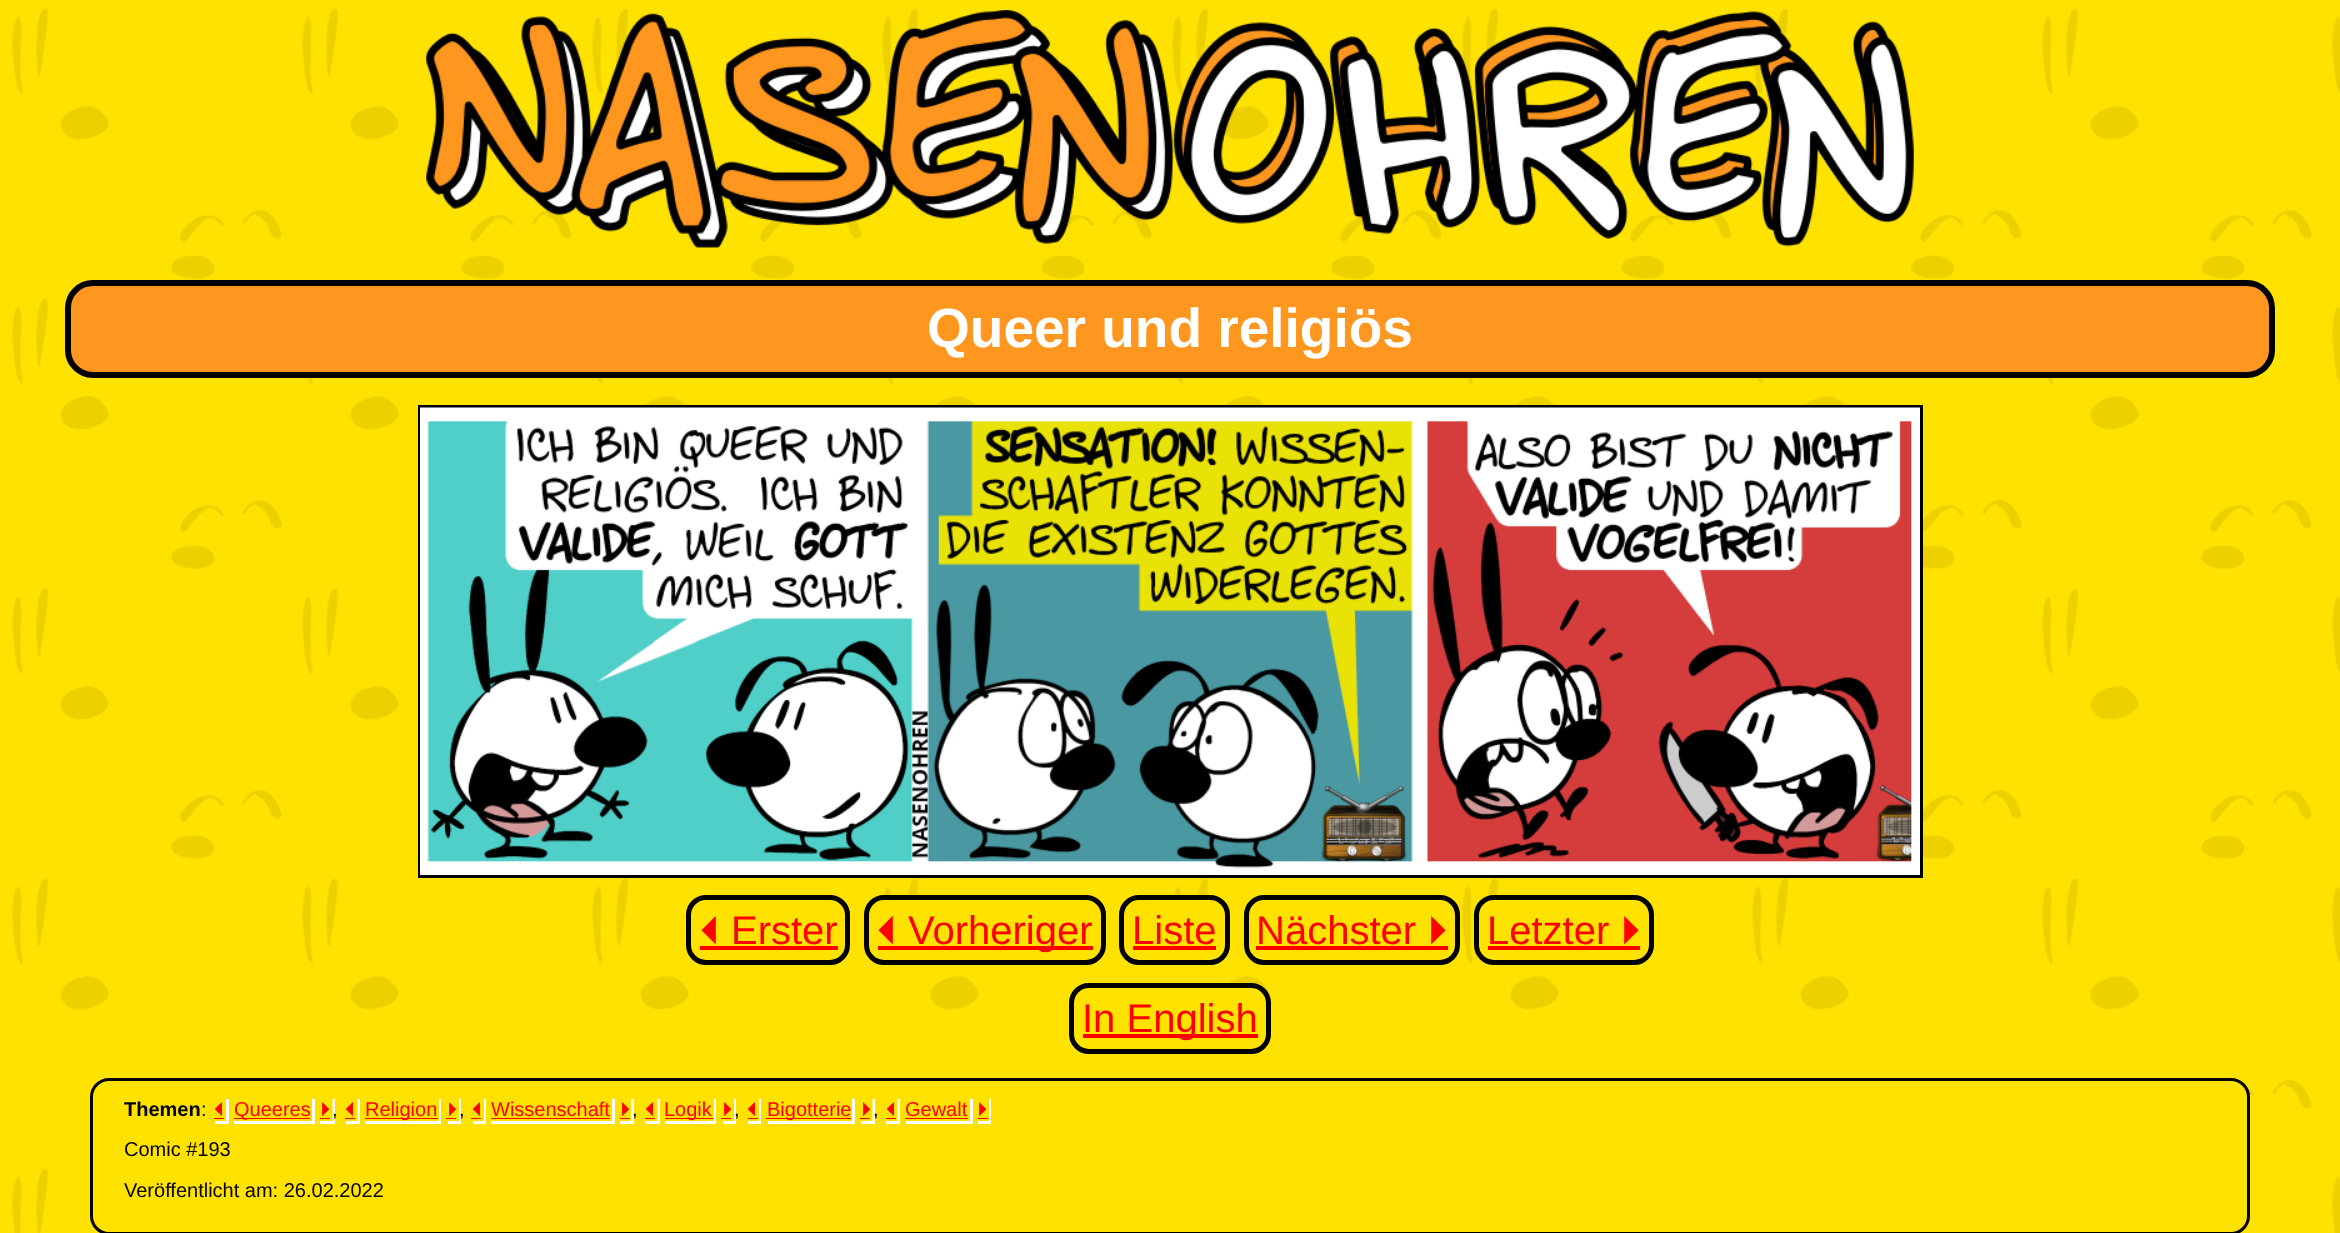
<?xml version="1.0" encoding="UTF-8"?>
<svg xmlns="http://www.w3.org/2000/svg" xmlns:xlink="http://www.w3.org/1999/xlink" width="2340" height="1233">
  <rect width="100%" height="100%" fill="#ffe200" />
  <image x="12" y="9" width="2328" height="1224" xlink:href="image1.png" />
  <image x="426" y="10" width="1488" height="238" xlink:href="image2.png" />
  <rect x="68" y="283" width="2204" height="92" rx="25" fill="#ff961f" stroke="#000000" stroke-width="6" />
  <rect x="419.5" y="406.5" width="1502" height="470" fill="none" stroke="#000000" stroke-width="3" />
  <image x="420" y="407" width="1500" height="468" xlink:href="image3.png" />
  <rect x="688.5" y="897.5" width="159" height="65" rx="17.5" fill="none" stroke="#000000" stroke-width="5" />
  <rect x="700" y="946" width="138" height="4" fill="#ff0000" />
  <rect x="866.5" y="897.5" width="237" height="65" rx="17.5" fill="#ffe200" stroke="#000000" stroke-width="5" />
  <rect x="878" y="946" width="215" height="4" fill="#ff0000" />
  <rect x="1121.5" y="897.5" width="106" height="65" rx="17.5" fill="#ffe200" stroke="#000000" stroke-width="5" />
  <rect x="1133" y="946" width="83" height="4" fill="#ff0000" />
  <rect x="1246.5" y="897.5" width="211" height="65" rx="17.5" fill="none" stroke="#000000" stroke-width="5" />
  <rect x="1256" y="946" width="192" height="4" fill="#ff0000" />
  <rect x="1476.5" y="897.5" width="175" height="65" rx="17.5" fill="#ffe200" stroke="#000000" stroke-width="5" />
  <rect x="1488" y="946" width="152" height="4" fill="#ff0000" />
  <rect x="1071.5" y="985.5" width="197" height="66" rx="17.5" fill="#ffe200" stroke="#000000" stroke-width="5" />
  <rect x="1083" y="1034" width="175" height="4" fill="#ff0000" />
  <rect x="91.5" y="1079.5" width="2157" height="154" rx="17.5" fill="#ffe200" stroke="#000000" stroke-width="3" />
  <path d="M 215 1121 v 3 h 14 v -25 h -3 v 22 z" fill="#ffffff" />
  <rect x="214" y="1118" width="10" height="1" fill="#ff0000" />
  <path d="M 234 1121 v 3 h 81 v -25 h -3 v 22 z" fill="#ffffff" />
  <rect x="234" y="1118" width="76" height="1" fill="#ff0000" />
  <path d="M 320 1121 v 3 h 15 v -25 h -2.5 v 22 z" fill="#ffffff" />
  <rect x="320" y="1118" width="10" height="1" fill="#ff0000" />
  <path d="M 346 1121 v 3 h 14 v -25 h -2.5 v 22 z" fill="#ffffff" />
  <rect x="345" y="1118" width="10" height="1" fill="#ff0000" />
  <path d="M 365 1121 v 3 h 76 v -25 h -2 v 22 z" fill="#ffffff" />
  <rect x="365" y="1118" width="73" height="1" fill="#ff0000" />
  <path d="M 448 1121 v 3 h 13 v -25 h -2 v 22 z" fill="#ffffff" />
  <rect x="446" y="1118" width="10" height="1" fill="#ff0000" />
  <path d="M 473 1121 v 3 h 13 v -25 h -2 v 22 z" fill="#ffffff" />
  <rect x="471" y="1118" width="10" height="1" fill="#ff0000" />
  <path d="M 491 1121 v 3 h 124 v -25 h -3 v 22 z" fill="#ffffff" />
  <rect x="491" y="1118" width="119" height="1" fill="#ff0000" />
  <path d="M 620 1121 v 3 h 14 v -25 h -3 v 22 z" fill="#ffffff" />
  <rect x="620" y="1118" width="10" height="1" fill="#ff0000" />
  <path d="M 645 1121 v 3 h 15 v -25 h -2.5 v 22 z" fill="#ffffff" />
  <rect x="645" y="1118" width="10" height="1" fill="#ff0000" />
  <path d="M 665 1121 v 3 h 51 v -25 h -2 v 22 z" fill="#ffffff" />
  <rect x="665" y="1118" width="48" height="1" fill="#ff0000" />
  <path d="M 723 1121 v 3 h 13 v -25 h -2 v 22 z" fill="#ffffff" />
  <rect x="721" y="1118" width="10" height="1" fill="#ff0000" />
  <path d="M 748 1121 v 3 h 13 v -25 h -2 v 22 z" fill="#ffffff" />
  <rect x="748" y="1118" width="10" height="1" fill="#ff0000" />
  <path d="M 768 1121 v 3 h 87 v -25 h -3 v 22 z" fill="#ffffff" />
  <rect x="766" y="1118" width="85" height="1" fill="#ff0000" />
  <path d="M 861 1121 v 3 h 14 v -25 h -2.5 v 22 z" fill="#ffffff" />
  <rect x="860" y="1118" width="10" height="1" fill="#ff0000" />
  <path d="M 886 1121 v 3 h 14 v -25 h -2.5 v 22 z" fill="#ffffff" />
  <rect x="886" y="1118" width="10" height="1" fill="#ff0000" />
  <path d="M 906 1121 v 3 h 67 v -25 h -3 v 22 z" fill="#ffffff" />
  <rect x="905" y="1118" width="63" height="1" fill="#ff0000" />
  <path d="M 978 1121 v 3 h 13 v -25 h -2 v 22 z" fill="#ffffff" />
  <rect x="978" y="1118" width="10" height="1" fill="#ff0000" />
  <text x="927" y="347" style="font-family: Liberation Sans; font-size: 55px; font-weight: bold; fill: #ffffff">Queer und religiös</text>
  <text x="700" y="944" style="font-family: FreeSans; font-size: 40px; fill: #ff0000">⏴</text>
  <text x="731" y="944" style="font-family: Liberation Sans; font-size: 40px; fill: #ff0000">Erster</text>
  <text x="877" y="944" style="font-family: FreeSans; font-size: 40px; fill: #ff0000">⏴</text>
  <text x="908" y="944" style="font-family: Liberation Sans; font-size: 40px; fill: #ff0000">Vorheriger</text>
  <text x="1132" y="944" style="font-family: Liberation Sans; font-size: 40px; fill: #ff0000">Liste</text>
  <text x="1256" y="944" style="font-family: Liberation Sans; font-size: 40px; fill: #ff0000">Nächster</text>
  <text x="1427" y="944" style="font-family: FreeSans; font-size: 40px; fill: #ff0000">⏵</text>
  <text x="1487" y="944" style="font-family: Liberation Sans; font-size: 40px; fill: #ff0000">Letzter</text>
  <text x="1620" y="944" style="font-family: FreeSans; font-size: 40px; fill: #ff0000">⏵</text>
  <text x="1082" y="1032" style="font-family: Liberation Sans; font-size: 40px; fill: #ff0000">In English</text>
  <text x="124" y="1116" style="font-family: Liberation Sans; font-size: 20px; font-weight: bold; fill: #000000">Themen</text>
  <text x="201" y="1116" style="font-family: Liberation Sans; font-size: 20px; fill: #000000">:</text>
  <text x="214" y="1116" style="font-family: FreeSans; font-size: 20px; fill: #ff0000">⏴</text>
  <text x="234" y="1116" style="font-family: Liberation Sans; font-size: 20px; fill: #ff0000">Queeres</text>
  <text x="320" y="1116" style="font-family: FreeSans; font-size: 20px; fill: #ff0000">⏵</text>
  <text x="332" y="1116" style="font-family: Liberation Sans; font-size: 20px; fill: #000000">,</text>
  <text x="345" y="1116" style="font-family: FreeSans; font-size: 20px; fill: #ff0000">⏴</text>
  <text x="365" y="1116" style="font-family: Liberation Sans; font-size: 20px; fill: #ff0000">Religion</text>
  <text x="447" y="1116" style="font-family: FreeSans; font-size: 20px; fill: #ff0000">⏵</text>
  <text x="459" y="1116" style="font-family: Liberation Sans; font-size: 20px; fill: #000000">,</text>
  <text x="472" y="1116" style="font-family: FreeSans; font-size: 20px; fill: #ff0000">⏴</text>
  <text x="491" y="1116" style="font-family: Liberation Sans; font-size: 20px; fill: #ff0000">Wissenschaft</text>
  <text x="620" y="1116" style="font-family: FreeSans; font-size: 20px; fill: #ff0000">⏵</text>
  <text x="632" y="1116" style="font-family: Liberation Sans; font-size: 20px; fill: #000000">,</text>
  <text x="645" y="1116" style="font-family: FreeSans; font-size: 20px; fill: #ff0000">⏴</text>
  <text x="664" y="1116" style="font-family: Liberation Sans; font-size: 20px; fill: #ff0000">Logik</text>
  <text x="722" y="1116" style="font-family: FreeSans; font-size: 20px; fill: #ff0000">⏵</text>
  <text x="734" y="1116" style="font-family: Liberation Sans; font-size: 20px; fill: #000000">,</text>
  <text x="747" y="1116" style="font-family: FreeSans; font-size: 20px; fill: #ff0000">⏴</text>
  <text x="767" y="1116" style="font-family: Liberation Sans; font-size: 20px; fill: #ff0000">Bigotterie</text>
  <text x="861" y="1116" style="font-family: FreeSans; font-size: 20px; fill: #ff0000">⏵</text>
  <text x="873" y="1116" style="font-family: Liberation Sans; font-size: 20px; fill: #000000">,</text>
  <text x="886" y="1116" style="font-family: FreeSans; font-size: 20px; fill: #ff0000">⏴</text>
  <text x="905" y="1116" style="font-family: Liberation Sans; font-size: 20px; fill: #ff0000">Gewalt</text>
  <text x="977" y="1116" style="font-family: FreeSans; font-size: 20px; fill: #ff0000">⏵</text>
  <text x="124" y="1156" style="font-family: Liberation Sans; font-size: 20px; fill: #000000">Comic #193</text>
  <text x="124" y="1197" style="font-family: Liberation Sans; font-size: 20px; fill: #000000">Veröffentlicht am: 26.02.2022</text>
</svg>
